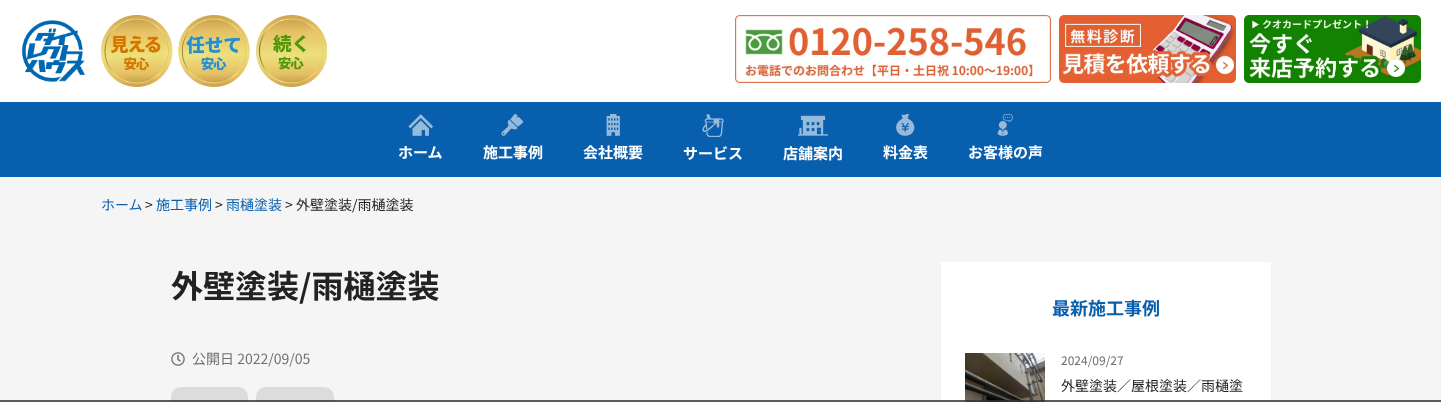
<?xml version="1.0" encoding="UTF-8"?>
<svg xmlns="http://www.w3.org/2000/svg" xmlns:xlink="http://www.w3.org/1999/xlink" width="1441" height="402">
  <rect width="100%" height="100%" fill="#f5f5f5" />
  <rect width="1441" height="102" fill="#ffffff" />
  <image x="21" y="20" width="64" height="62" xlink:href="image1.png" />
  <image x="101" y="15" width="226" height="72" xlink:href="image2.png" />
  <image x="735" y="15" width="316" height="68" xlink:href="image3.png" />
  <image x="1059" y="15" width="177" height="68" xlink:href="image4.png" />
  <image x="1244" y="15" width="177" height="68" xlink:href="image5.png" />
  <rect y="102" width="1441" height="75" fill="#085fae" />
  <image x="408" y="114" width="25" height="22" xlink:href="image6.png" />
  <image x="501" y="114" width="22" height="22" xlink:href="image7.png" />
  <image x="606" y="114" width="14" height="22" xlink:href="image8.png" />
  <image x="702" y="114" width="22" height="23" xlink:href="image9.png" />
  <image x="798" y="115" width="30" height="21" xlink:href="image10.png" />
  <image x="896" y="114" width="19" height="22" xlink:href="image11.png" />
  <image x="997" y="114" width="16" height="22" xlink:href="image12.png" />
  <image x="171" y="352" width="14" height="14" xlink:href="image13.png" />
  <rect x="171" y="387" width="77" height="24" rx="10" fill="#dbdcdc" />
  <rect x="256" y="387" width="78" height="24" rx="10" fill="#dbdcdc" />
  <rect x="941" y="262" width="330" height="140" fill="#ffffff" />
  <image x="965" y="353" width="80" height="49" xlink:href="image14.png" />
  <rect y="400" width="1441" height="2" fill="#333333" fill-opacity="0.8" />
  <text x="398" y="158" style="font-family: Noto Sans JP; font-size: 15px; font-weight: bold; fill: #ffffff">ホーム</text>
  <text x="483" y="158" style="font-family: Noto Sans JP; font-size: 15px; font-weight: bold; fill: #ffffff">施工事例</text>
  <text x="583" y="158" style="font-family: Noto Sans JP; font-size: 15px; font-weight: bold; fill: #ffffff">会社概要</text>
  <text x="683" y="159" style="font-family: Noto Sans JP; font-size: 15px; font-weight: bold; fill: #ffffff">サービス</text>
  <text x="783" y="159" style="font-family: Noto Sans JP; font-size: 15px; font-weight: bold; fill: #ffffff">店舗案内</text>
  <text x="883" y="158" style="font-family: Noto Sans JP; font-size: 15px; font-weight: bold; fill: #ffffff">料金表</text>
  <text x="968" y="158" style="font-family: Noto Sans JP; font-size: 15px; font-weight: bold; fill: #ffffff">お客様の声</text>
  <text x="101" y="210" style="font-family: Noto Sans JP; font-size: 14px; fill: #085fae">ホーム</text>
  <text x="145" y="210" style="font-family: Noto Sans JP; font-size: 14px; fill: #222222">&gt;</text>
  <text x="156" y="210" style="font-family: Noto Sans JP; font-size: 14px; fill: #085fae">施工事例</text>
  <text x="215" y="210" style="font-family: Noto Sans JP; font-size: 14px; fill: #222222">&gt;</text>
  <text x="226" y="210" style="font-family: Noto Sans JP; font-size: 14px; fill: #085fae">雨樋塗装</text>
  <text x="285" y="210" style="font-family: Noto Sans JP; font-size: 14px; fill: #222222">&gt; 外壁塗装/雨樋塗装</text>
  <text x="171" y="298" style="font-family: Noto Sans JP; font-size: 32px; font-weight: bold; fill: #222222">外壁塗装/雨樋塗装</text>
  <text x="192" y="364" style="font-family: Noto Sans JP; font-size: 14px; fill: #707070">公開日 2022/09/05</text>
  <text x="1052" y="315" style="font-family: Noto Sans JP; font-size: 18px; font-weight: bold; fill: #085fae">最新施工事例</text>
  <text x="1061" y="365" style="font-family: Noto Sans JP; font-size: 12px; fill: #707070">2024/09/27</text>
  <text x="1061" y="391" style="font-family: Noto Sans JP; font-size: 14px; fill: #222222">外壁塗装／屋根塗装／雨樋塗</text>
</svg>
